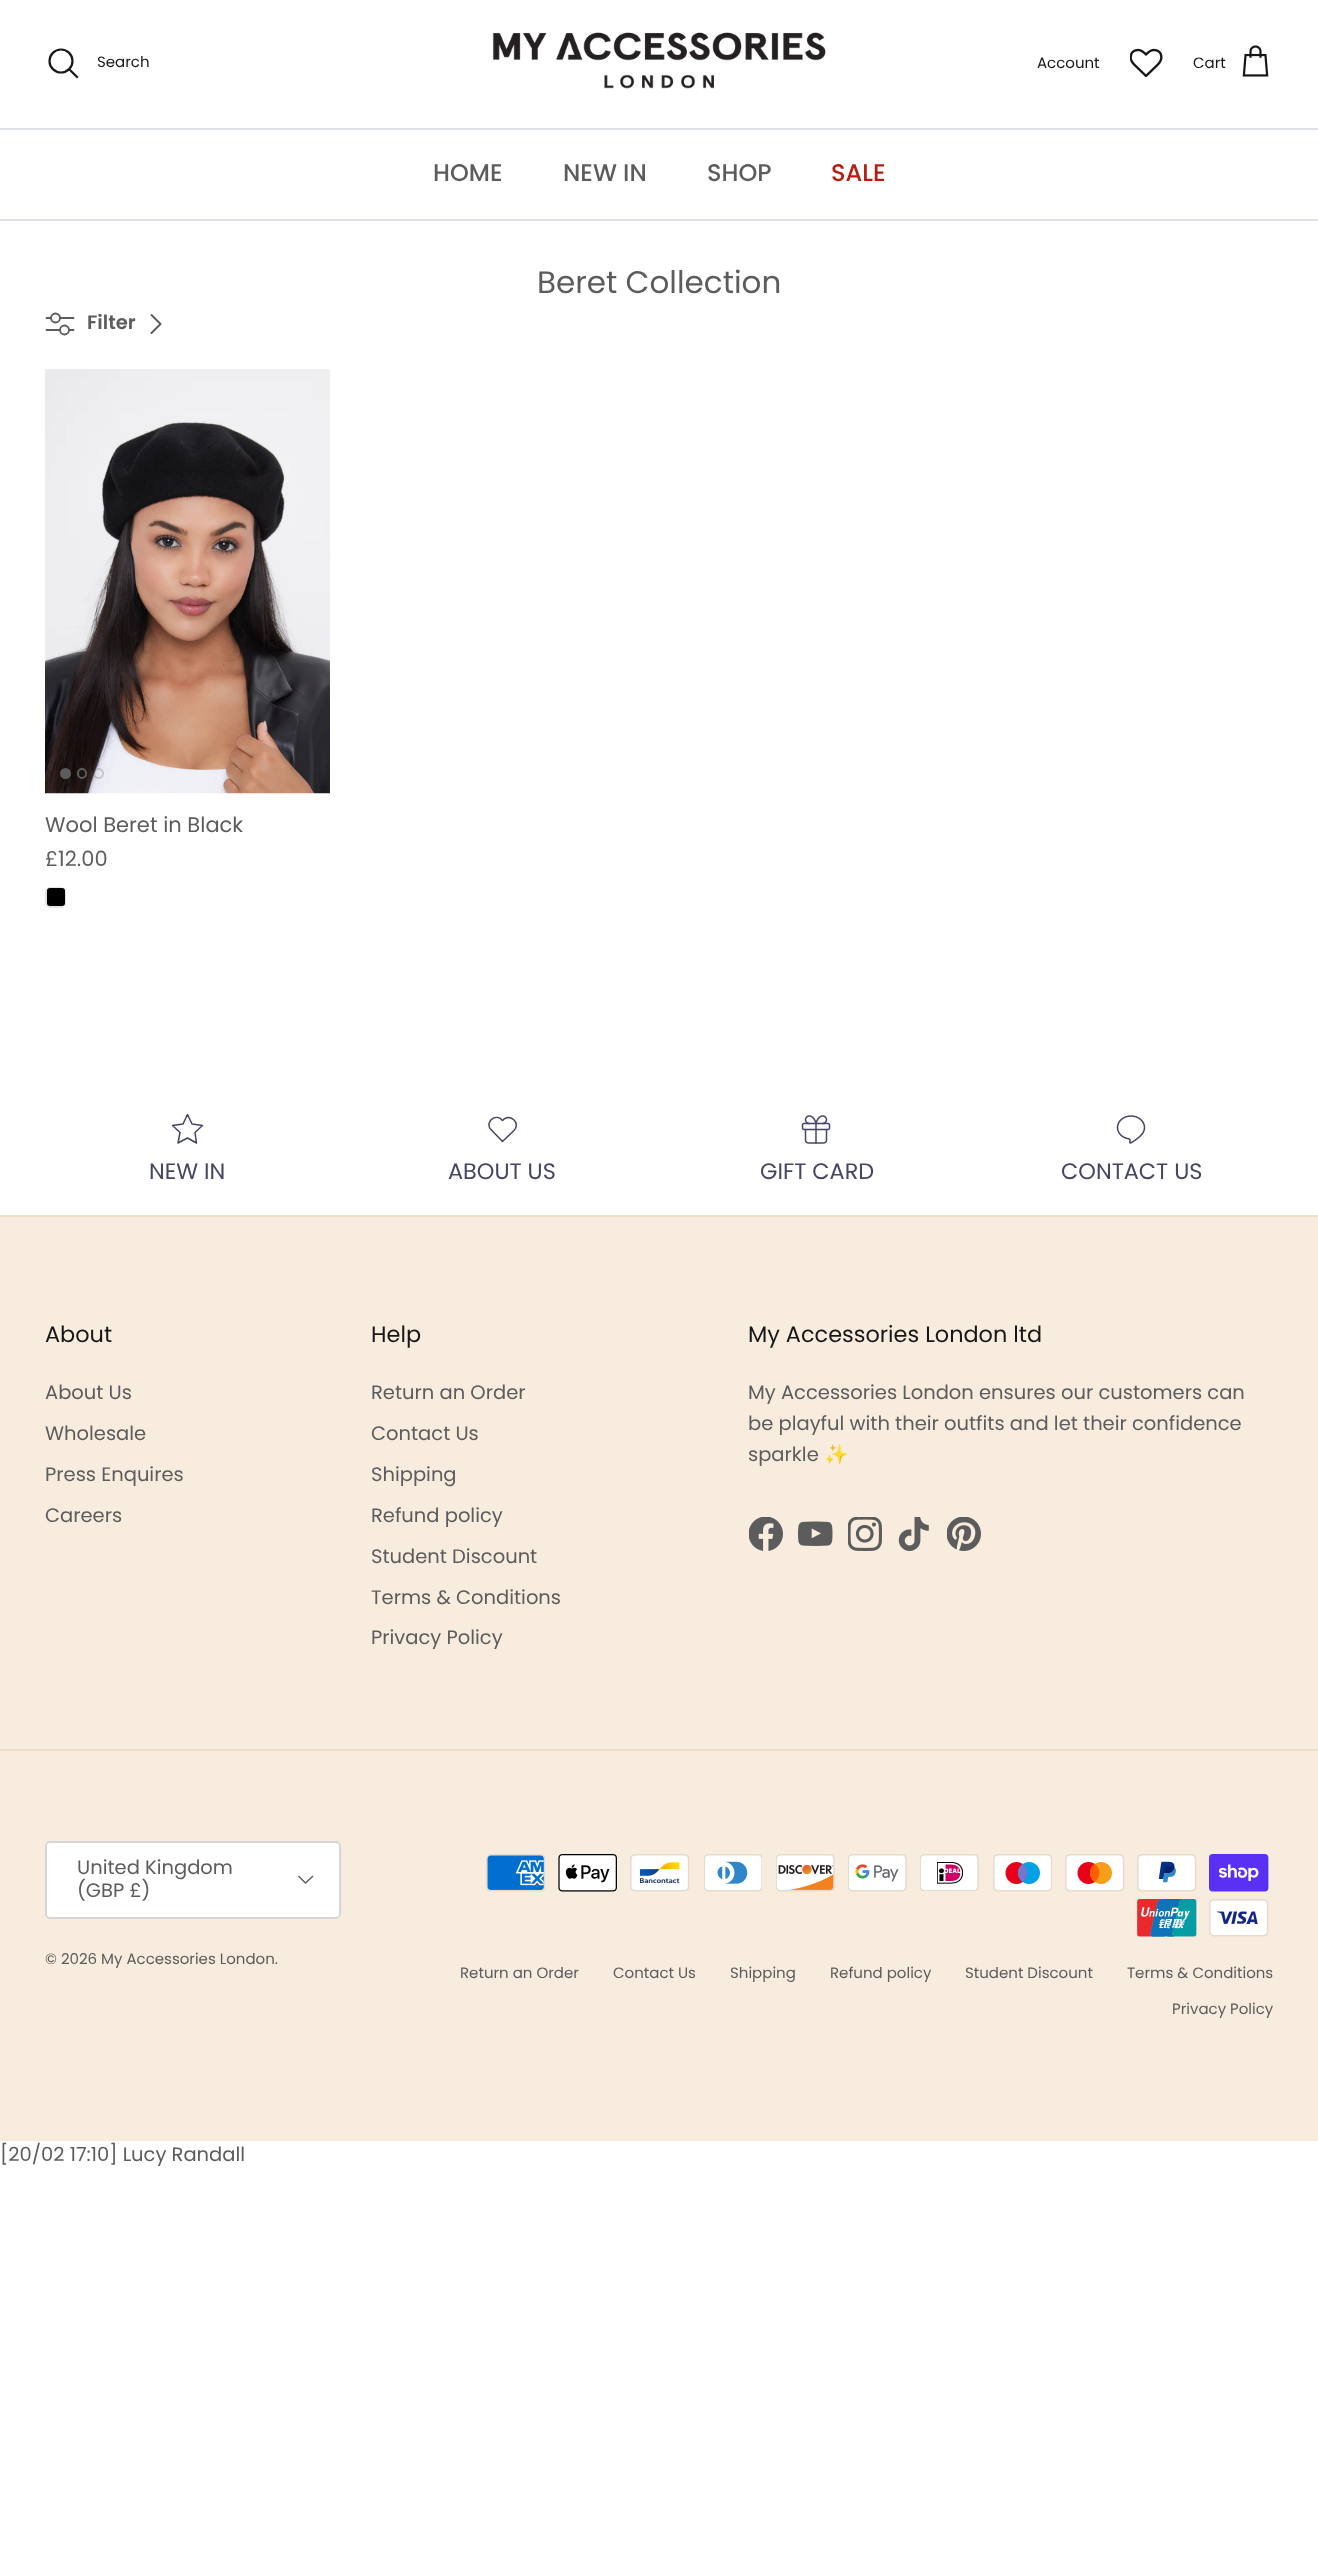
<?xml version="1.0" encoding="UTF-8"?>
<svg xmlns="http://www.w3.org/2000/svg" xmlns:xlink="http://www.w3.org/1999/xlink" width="1318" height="2550">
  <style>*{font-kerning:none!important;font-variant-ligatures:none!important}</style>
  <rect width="100%" height="100%" fill="#ffffff" />
  <rect y="128" width="1318" height="2" fill="#dfe3e8" />
  <circle cx="61" cy="61" r="11.5" fill="none" stroke="#171717" stroke-width="2.2" />
  <path d="M 70.5 70.5 l 6.5 6.5" fill="none" stroke="#171717" stroke-width="2.2" stroke-linecap="square" />
  <image x="492" y="32" width="334" height="57" xlink:href="image1.png" />
  <image x="1130" y="48" width="33" height="30" xlink:href="image2.png" />
  <image x="1242" y="45" width="27" height="32" xlink:href="image3.png" />
  <rect y="219" width="1318" height="2" fill="#dfe3e8" />
  <path d="M 46.5 318 h 27 m -27 12 h 27" fill="none" stroke="#5c5c5c" stroke-width="1.9" stroke-linecap="round" stroke-linejoin="round" />
  <circle cx="55.5" cy="318" r="4.5" fill="#ffffff" stroke="#5c5c5c" stroke-width="1.9" />
  <circle cx="64.5" cy="330" r="4.5" fill="#ffffff" stroke="#5c5c5c" stroke-width="1.9" />
  <path d="M 151.5 333 l 9 -9 l -9 -9" fill="none" stroke="#5c5c5c" stroke-width="2" stroke-linecap="round" stroke-linejoin="round" />
  <image x="45" y="369" width="285" height="425" xlink:href="image4.png" />
  <circle cx="65.5" cy="773.5" r="4.5" fill="#5c5c5c" stroke="#5c5c5c" stroke-width="2" />
  <rect x="78" y="769" width="8" height="9" rx="4" fill="none" stroke="#5c5c5c" stroke-width="2" />
  <circle cx="98.5" cy="773.5" r="4.5" fill="none" stroke="#5c5c5c" stroke-opacity="0.25" stroke-width="2" />
  <rect x="47" y="888" width="18" height="18" rx="3" fill="#000000" />
  <rect x="46" y="888" width="19" height="19" rx="4" fill="none" stroke="#000000" stroke-opacity="0.1" stroke-width="2" />
  <path d="M 187.5 1138 l -9.5 5 l 2 -10.5 l -7.5 -7 l 10.5 -1.5 l 4.5 -9.5 l 4.5 9.5 l 10.5 1.5 l -7.5 7 l 1.5 10.5 z" fill="none" stroke="#454564" stroke-width="1.5" stroke-linecap="round" stroke-linejoin="round" />
  <path d="M 514 1130.5 l -11.5 11 l -12.5 -13 c -4.5 -8 7 -15.5 12.5 -8 c 6.5 -8.5 19 2.5 11.5 10" fill="none" stroke="#454564" stroke-width="1.5" stroke-linecap="round" stroke-linejoin="round" />
  <image x="801" y="1115" width="30" height="29" xlink:href="image5.png" />
  <image x="1116" y="1115" width="30" height="29" xlink:href="image6.png" />
  <rect y="1217" width="1318" height="924" fill="#f7ecde" />
  <rect y="1215" width="1318" height="2" fill="#efdfc7" />
  <image x="749" y="1517" width="34" height="34" xlink:href="image7.png" />
  <image x="798" y="1521" width="35" height="25" xlink:href="image8.png" />
  <image x="848" y="1517" width="34" height="34" xlink:href="image9.png" />
  <image x="898" y="1517" width="31" height="34" xlink:href="image10.png" />
  <image x="947" y="1517" width="34" height="34" xlink:href="image11.png" />
  <rect y="1749" width="1318" height="2" fill="#efdfc7" />
  <rect x="46" y="1842" width="294" height="76" rx="4" fill="#ffffff" stroke="#d6d6d6" stroke-width="2" />
  <path d="M 313 1876 l -7.5 7 l -7 -7" fill="none" stroke="#5c5c5c" stroke-width="1.4" />
  <image x="486" y="1854" width="60" height="38" xlink:href="image12.png" />
  <image x="558" y="1854" width="59" height="38" xlink:href="image13.png" />
  <image x="630" y="1854" width="60" height="38" xlink:href="image14.png" />
  <image x="704" y="1854" width="58" height="38" xlink:href="image15.png" />
  <image x="776" y="1854" width="59" height="38" xlink:href="image16.png" />
  <image x="848" y="1854" width="59" height="38" xlink:href="image17.png" />
  <image x="920" y="1854" width="59" height="37" xlink:href="image18.png" />
  <image x="993" y="1854" width="59" height="38" xlink:href="image19.png" />
  <image x="1065" y="1854" width="60" height="38" xlink:href="image20.png" />
  <image x="1137" y="1854" width="60" height="38" xlink:href="image21.png" />
  <image x="1209" y="1854" width="60" height="38" xlink:href="image22.png" />
  <image x="1137" y="1899" width="60" height="38" xlink:href="image23.png" />
  <image x="1209" y="1899" width="60" height="38" xlink:href="image24.png" />
  <text x="97" y="67" style="font-family: Poppins; font-size: 15px; fill: #171717">Search</text>
  <text x="1037" y="68" style="font-family: Poppins; font-size: 15px; fill: #171717">Account</text>
  <text x="1193" y="68" style="font-family: Poppins; font-size: 15px; fill: #171717">Cart</text>
  <text x="433" y="181" style="font-family: Poppins; font-size: 24px; font-weight: 500; fill: #5c5c5c">HOME</text>
  <text x="563" y="181" style="font-family: Poppins; font-size: 24px; font-weight: 500; fill: #5c5c5c">NEW IN</text>
  <text x="707" y="181" style="font-family: Poppins; font-size: 24px; font-weight: 500; fill: #5c5c5c">SHOP</text>
  <text x="831" y="181" style="font-family: Poppins; font-size: 24px; font-weight: 500; fill: #b61d0f">SALE</text>
  <text x="537" y="293" style="font-family: Poppins; font-size: 31px; fill: #5c5c5c">Beret Collection</text>
  <text x="87" y="329" style="font-family: Poppins; font-size: 19.5px; font-weight: 600; fill: #5c5c5c">Filter</text>
  <text x="45" y="832" style="font-family: Poppins; font-size: 21px; fill: #5c5c5c">Wool Beret in Black</text>
  <text x="45" y="866" style="font-family: Poppins; font-size: 21px; fill: #5c5c5c">£12.00</text>
  <text x="149" y="1179" style="font-family: Poppins; font-size: 22.4px; fill: #454564">NEW IN</text>
  <text x="448" y="1179" style="font-family: Poppins; font-size: 22.4px; fill: #454564">ABOUT US</text>
  <text x="760" y="1179" style="font-family: Poppins; font-size: 22.4px; fill: #454564">GIFT CARD</text>
  <text x="1061" y="1179" style="font-family: Poppins; font-size: 22.4px; fill: #454564">CONTACT US</text>
  <text x="45" y="1342" style="font-family: Poppins; font-size: 22.4px; fill: #171717">About</text>
  <text x="45" y="1399" style="font-family: Poppins; font-size: 19.5px; fill: #5c5c5c">About Us</text>
  <text x="45" y="1440" style="font-family: Poppins; font-size: 19.5px; fill: #5c5c5c">Wholesale</text>
  <text x="45" y="1481" style="font-family: Poppins; font-size: 19.5px; fill: #5c5c5c">Press Enquires</text>
  <text x="45" y="1522" style="font-family: Poppins; font-size: 19.5px; fill: #5c5c5c">Careers</text>
  <text x="371" y="1342" style="font-family: Poppins; font-size: 22.4px; fill: #171717">Help</text>
  <text x="371" y="1399" style="font-family: Poppins; font-size: 19.5px; fill: #5c5c5c">Return an Order</text>
  <text x="371" y="1440" style="font-family: Poppins; font-size: 19.5px; fill: #5c5c5c">Contact Us</text>
  <text x="371" y="1481" style="font-family: Poppins; font-size: 19.5px; fill: #5c5c5c">Shipping</text>
  <text x="371" y="1522" style="font-family: Poppins; font-size: 19.5px; fill: #5c5c5c">Refund policy</text>
  <text x="371" y="1563" style="font-family: Poppins; font-size: 19.5px; fill: #5c5c5c">Student Discount</text>
  <text x="371" y="1604" style="font-family: Poppins; font-size: 19.5px; fill: #5c5c5c">Terms &amp; Conditions</text>
  <text x="371" y="1644" style="font-family: Poppins; font-size: 19.5px; fill: #5c5c5c">Privacy Policy</text>
  <text x="748" y="1342" style="font-family: Poppins; font-size: 22.4px; fill: #171717">My Accessories London ltd</text>
  <text x="748" y="1399" style="font-family: Poppins; font-size: 19.5px; fill: #5c5c5c">My Accessories London ensures our customers can</text>
  <text x="748" y="1430" style="font-family: Poppins; font-size: 19.5px; fill: #5c5c5c">be playful with their outfits and let their confidence</text>
  <text x="748" y="1461" style="font-family: Poppins; font-size: 19.5px; fill: #5c5c5c">sparkle</text>
  <text x="824" y="1461" style="font-family: Noto Color Emoji; font-size: 19.5px; fill: #5c5c5c">✨</text>
  <text x="77" y="1874" style="font-family: Poppins; font-size: 19.5px; fill: #5c5c5c">United Kingdom</text>
  <text x="77" y="1897" style="font-family: Poppins; font-size: 19.5px; fill: #5c5c5c">(GBP £)</text>
  <text x="45" y="1964" style="font-family: Poppins; font-size: 15px; fill: #5c5c5c">© 2026 My Accessories London.</text>
  <text x="460" y="1978" style="font-family: Poppins; font-size: 15px; fill: #5c5c5c">Return an Order</text>
  <text x="613" y="1978" style="font-family: Poppins; font-size: 15px; fill: #5c5c5c">Contact Us</text>
  <text x="730" y="1978" style="font-family: Poppins; font-size: 15px; fill: #5c5c5c">Shipping</text>
  <text x="830" y="1978" style="font-family: Poppins; font-size: 15px; fill: #5c5c5c">Refund policy</text>
  <text x="965" y="1978" style="font-family: Poppins; font-size: 15px; fill: #5c5c5c">Student Discount</text>
  <text x="1127" y="1978" style="font-family: Poppins; font-size: 15px; fill: #5c5c5c">Terms &amp; Conditions</text>
  <text x="1172" y="2014" style="font-family: Poppins; font-size: 15px; fill: #5c5c5c">Privacy Policy</text>
  <text x="0" y="2161" style="font-family: Poppins; font-size: 19.5px; fill: #5c5c5c">[20/02 17:10] Lucy Randall</text>
</svg>
